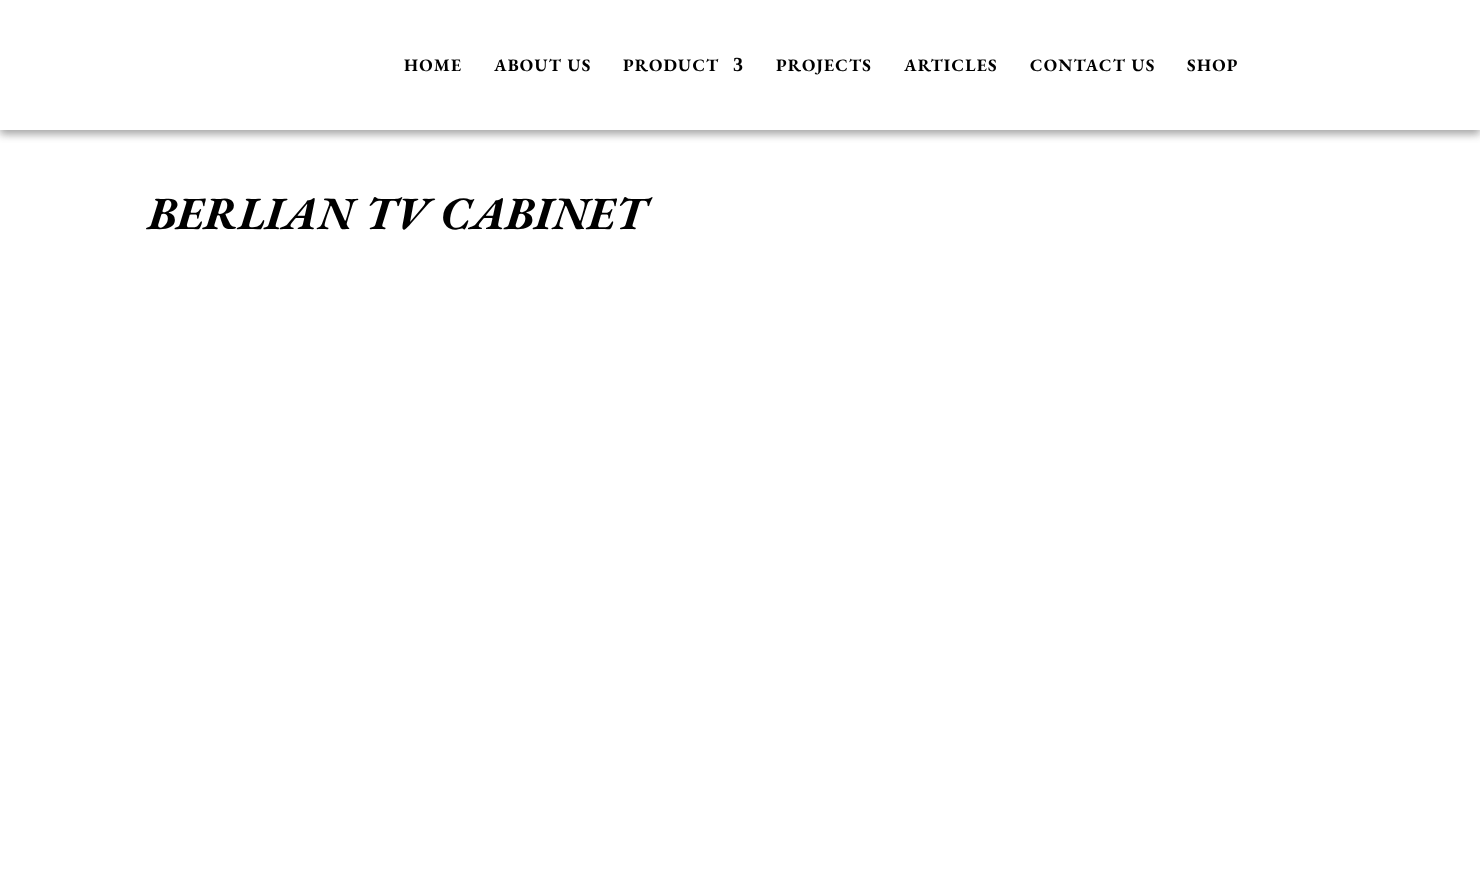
<?xml version="1.0" encoding="UTF-8"?>
<svg xmlns="http://www.w3.org/2000/svg" xmlns:xlink="http://www.w3.org/1999/xlink" width="1480" height="882">
  <rect width="100%" height="100%" fill="#ffffff" />
  <rect y="4" width="1480" height="130" fill="#000000" fill-opacity="0.23" filter="blur(4px)" />
  <rect y="4" width="1480" height="130" fill="#000000" fill-opacity="0.16" filter="blur(4px)" />
  <rect width="1480" height="130" fill="#ffffff" />
  <text x="404" y="71" style="font-family: EB Garamond; font-size: 17.5px; font-weight: bold; letter-spacing: 1.25px; fill: #000000">HOME</text>
  <text x="494" y="71" style="font-family: EB Garamond; font-size: 17.5px; font-weight: bold; letter-spacing: 1.25px; fill: #000000">ABOUT US</text>
  <text x="623" y="71" style="font-family: EB Garamond; font-size: 17.5px; font-weight: bold; letter-spacing: 1.25px; fill: #000000">PRODUCT</text>
  <text x="733" y="71" style="font-family: Liberation Serif; font-size: 20px; font-weight: bold; letter-spacing: 1.25px; fill: #000000">3</text>
  <text x="776" y="71" style="font-family: EB Garamond; font-size: 17.5px; font-weight: bold; letter-spacing: 1.25px; fill: #000000">PROJECTS</text>
  <text x="904" y="71" style="font-family: EB Garamond; font-size: 17.5px; font-weight: bold; letter-spacing: 1.25px; fill: #000000">ARTICLES</text>
  <text x="1030" y="71" style="font-family: EB Garamond; font-size: 17.5px; font-weight: bold; letter-spacing: 1.25px; fill: #000000">CONTACT US</text>
  <text x="1187" y="71" style="font-family: EB Garamond; font-size: 17.5px; font-weight: bold; letter-spacing: 1.25px; fill: #000000">SHOP</text>
  <text x="148" y="229" style="font-family: EB Garamond; font-size: 46.25px; font-weight: bold; font-style: italic; fill: #000000">BERLIAN TV CABINET</text>
</svg>
